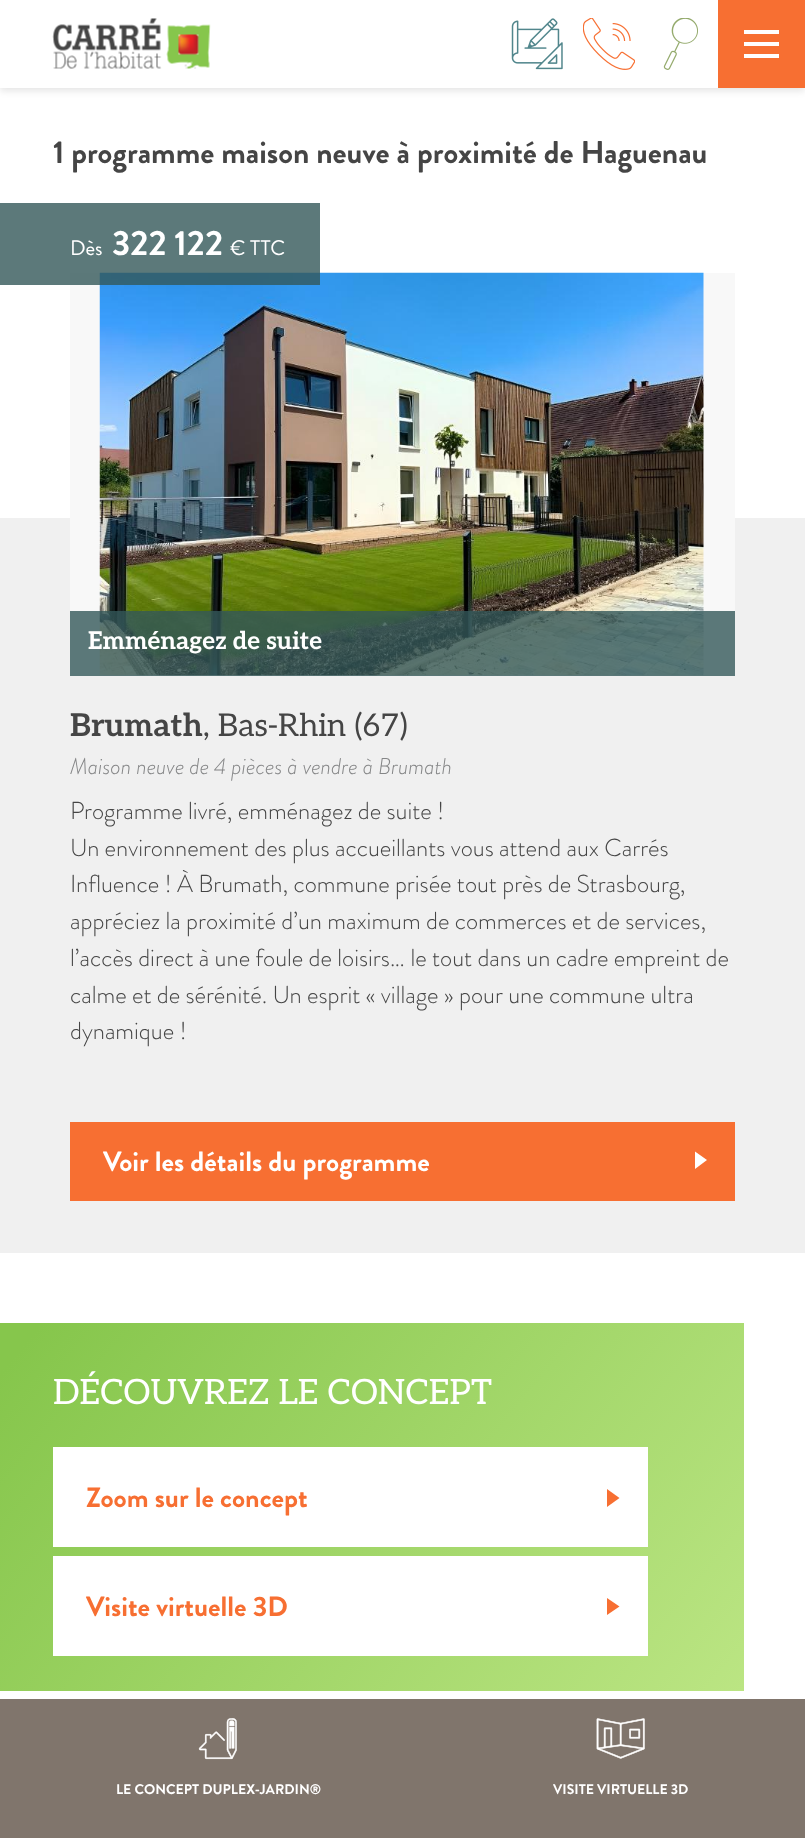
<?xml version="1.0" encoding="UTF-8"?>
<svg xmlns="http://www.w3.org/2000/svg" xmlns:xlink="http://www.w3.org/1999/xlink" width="805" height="1838">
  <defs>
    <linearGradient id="g1" gradientUnits="userSpaceOnUse" x1="686" y1="1761" x2="57" y2="1252"><stop offset="0" stop-color="#bbe583" /><stop offset="0.96" stop-color="#86c64c" /></linearGradient>
  </defs>
  <rect width="100%" height="100%" fill="#ffffff" />
  <rect y="4" width="805" height="87" fill="#000000" fill-opacity="0.1" filter="blur(3.5px)" />
  <rect width="718" height="88" fill="#ffffff" />
  <image x="52" y="18" width="159" height="51" xlink:href="image1.png" />
  <image x="511" y="18" width="52" height="52" xlink:href="image2.png" />
  <image x="583" y="18" width="52" height="52" xlink:href="image3.png" />
  <image x="663" y="18" width="35" height="52" xlink:href="image4.png" />
  <rect x="718" width="87" height="88" fill="#f76f32" />
  <rect x="744" y="30" width="35" height="4" fill="#ffffff" />
  <rect x="744" y="42" width="35" height="4" fill="#ffffff" />
  <rect x="744" y="54" width="35" height="4" fill="#ffffff" />
  <rect y="518" width="805" height="735" fill="#f0f0f0" />
  <rect x="70" y="273" width="665" height="403" fill="#f8f8f8" />
  <image x="99" y="272" width="605" height="404" xlink:href="image5.png" />
  <rect y="203" width="320" height="82" fill="#335759" fill-opacity="0.8" />
  <rect x="70" y="611" width="665" height="65" fill="#335759" fill-opacity="0.8" />
  <rect x="70" y="1122" width="665" height="79" fill="#f76f32" />
  <path d="M 707 1160 l -12 9 v -17.5 z" fill="#ffffff" fill-rule="evenodd" />
  <rect y="1323" width="744" height="368" fill="url(#g1)" />
  <rect x="53" y="1447" width="595" height="100" fill="#ffffff" />
  <path d="M 619.5 1498 l -12.5 9 v -18 z" fill="#f76f32" fill-rule="evenodd" />
  <rect x="53" y="1556" width="595" height="100" fill="#ffffff" />
  <path d="M 619.5 1606.5 l -12.5 8.5 v -17 z" fill="#f76f32" fill-rule="evenodd" />
  <rect y="1699" width="805" height="139" fill="#80756c" />
  <image x="198" y="1718" width="39" height="42" xlink:href="image6.png" />
  <image x="596" y="1718" width="49" height="41" xlink:href="image7.png" />
  <text x="53" y="163" style="font-family: Brandon Grotesque; font-size: 31.5px; font-weight: bold; fill: #454545">1 programme maison neuve à proximité de Haguenau</text>
  <text x="70" y="255" style="font-family: Brandon Grotesque; font-size: 21px; fill: #ffffff">Dès</text>
  <text x="112" y="255" style="font-family: Brandon Grotesque; font-size: 35px; font-weight: bold; fill: #ffffff">322 122</text>
  <text x="230" y="255" style="font-family: Brandon Grotesque; font-size: 21px; fill: #ffffff">€ TTC</text>
  <text x="88" y="649" style="font-family: Aleo; font-size: 24.5px; font-weight: bold; fill: #ffffff">Emménagez de suite</text>
  <text x="70" y="736" style="font-family: Aleo; font-size: 31.5px; font-weight: bold; fill: #454545">Brumath</text>
  <text x="203" y="736" style="font-family: Aleo; font-size: 31.5px; fill: #454545">, Bas-Rhin (67)</text>
  <text x="70" y="774" style="font-family: Brandon Grotesque; font-size: 22.75px; font-weight: 300; font-style: italic; fill: #858687">Maison neuve de 4 pièces à vendre à Brumath</text>
  <text x="70" y="819" style="font-family: Brandon Grotesque; font-size: 24.5px; font-weight: 300; fill: #454545">Programme livré, emménagez de suite !</text>
  <text x="70" y="856" style="font-family: Brandon Grotesque; font-size: 24.5px; font-weight: 300; fill: #454545">Un environnement des plus accueillants vous attend aux Carrés</text>
  <text x="70" y="892" style="font-family: Brandon Grotesque; font-size: 24.5px; font-weight: 300; fill: #454545">Influence ! À Brumath, commune prisée tout près de Strasbourg,</text>
  <text x="70" y="929" style="font-family: Brandon Grotesque; font-size: 24.5px; font-weight: 300; fill: #454545">appréciez la proximité d’un maximum de commerces et de services,</text>
  <text x="70" y="966" style="font-family: Brandon Grotesque; font-size: 24.5px; font-weight: 300; fill: #454545">l’accès direct à une foule de loisirs… le tout dans un cadre empreint de</text>
  <text x="70" y="1003" style="font-family: Brandon Grotesque; font-size: 24.5px; font-weight: 300; fill: #454545">calme et de sérénité. Un esprit « village » pour une commune ultra</text>
  <text x="70" y="1039" style="font-family: Brandon Grotesque; font-size: 24.5px; font-weight: 300; fill: #454545">dynamique !</text>
  <text x="103" y="1171" style="font-family: Brandon Grotesque; font-size: 28px; font-weight: bold; fill: #ffffff">Voir les détails du programme</text>
  <text x="53" y="1404" style="font-family: Aleo; font-size: 35px; fill: #ffffff">DÉCOUVREZ LE CONCEPT</text>
  <text x="86" y="1507" style="font-family: Brandon Grotesque; font-size: 28px; font-weight: bold; fill: #f76f32">Zoom sur le concept</text>
  <text x="86" y="1616" style="font-family: Brandon Grotesque; font-size: 28px; font-weight: bold; fill: #f76f32">Visite virtuelle 3D</text>
  <text x="116" y="1794" style="font-family: Brandon Grotesque; font-size: 14px; font-weight: bold; fill: #ffffff">LE CONCEPT DUPLEX-JARDIN®</text>
  <text x="553" y="1794" style="font-family: Brandon Grotesque; font-size: 14px; font-weight: bold; fill: #ffffff">VISITE VIRTUELLE 3D</text>
</svg>
